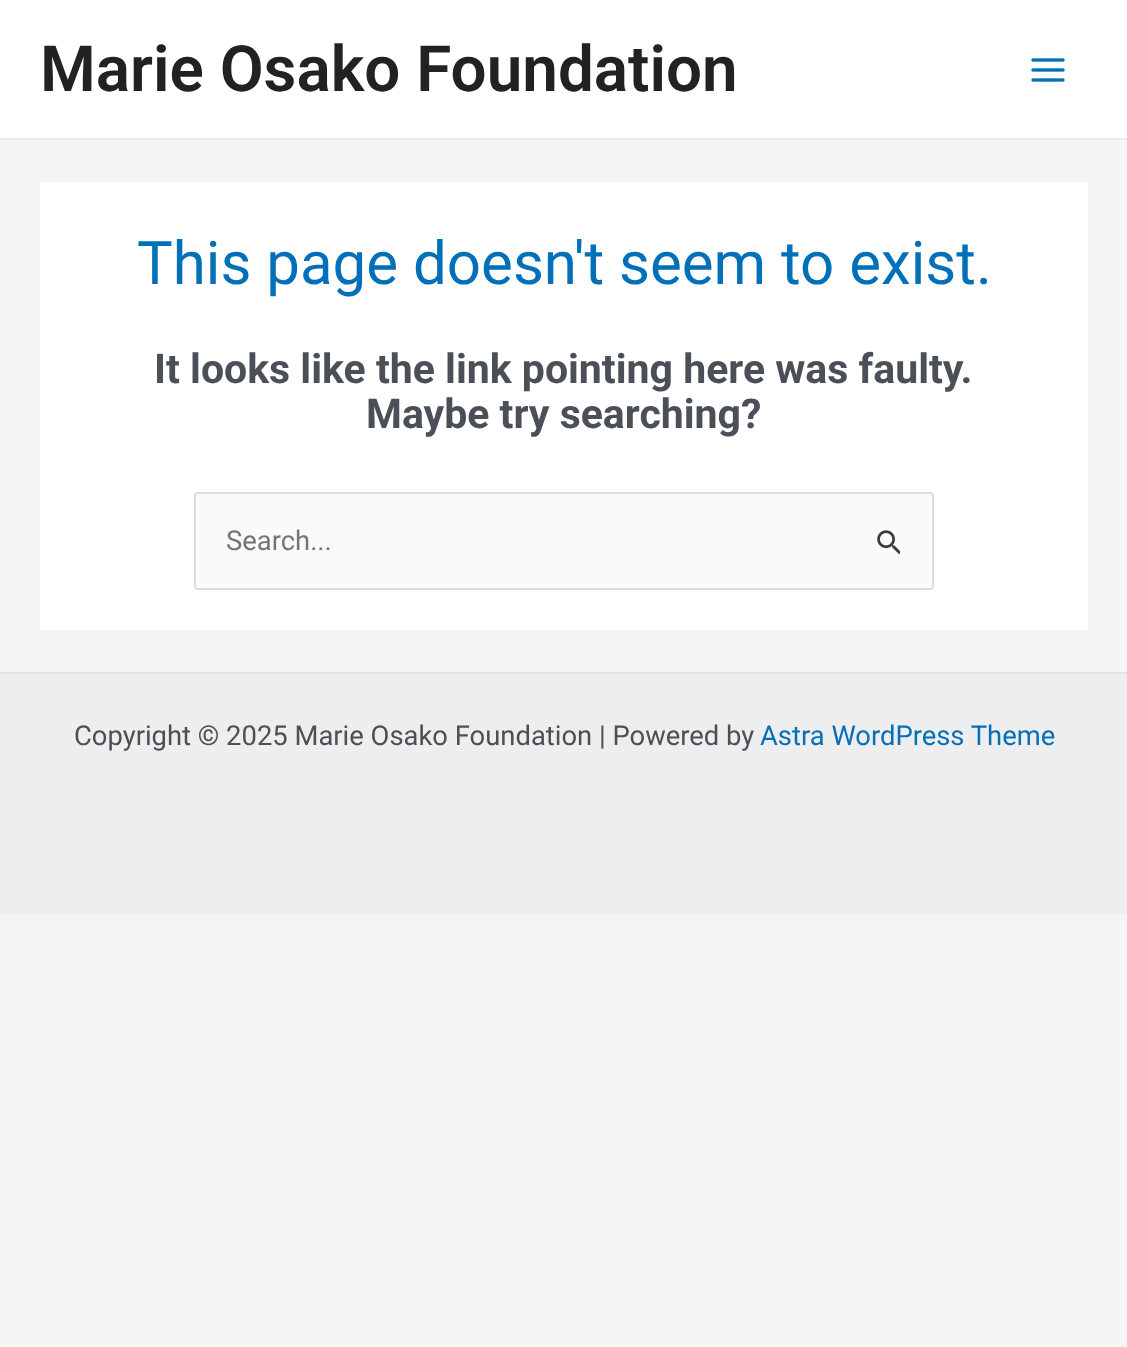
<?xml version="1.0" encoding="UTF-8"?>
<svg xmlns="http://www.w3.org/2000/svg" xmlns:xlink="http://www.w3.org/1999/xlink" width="1127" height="1347">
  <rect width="100%" height="100%" fill="#f5f5f5" />
  <rect width="1127" height="138" fill="#ffffff" />
  <rect y="138" width="1127" height="2" fill="#eaeaea" />
  <image x="1031" y="58" width="34" height="24" xlink:href="image1.png" />
  <rect x="40" y="182" width="1048" height="448" fill="#ffffff" />
  <rect x="195" y="493" width="738" height="96" rx="3" fill="#fafafa" stroke="#dddddd" stroke-width="2" />
  <image x="877" y="530" width="23" height="25" xlink:href="image2.png" />
  <rect y="674" width="1127" height="240" fill="#eeeeee" />
  <rect y="672" width="1127" height="2" fill="#e5e5e5" />
  <text x="40" y="91" style="font-family: Roboto; font-size: 63.75px; font-weight: 600; fill: #222222">Marie Osako Foundation</text>
  <text x="137" y="284" style="font-family: Roboto; font-size: 60px; fill: #0170b9">This page doesn't seem to exist.</text>
  <text x="154" y="383" style="font-family: Roboto; font-size: 41px; font-weight: bold; fill: #4b4f58">It looks like the link pointing here was faulty.</text>
  <text x="366" y="428" style="font-family: Roboto; font-size: 41px; font-weight: bold; fill: #4b4f58">Maybe try searching?</text>
  <text x="226" y="550" style="font-family: Roboto; font-size: 27.4px; fill: #757575">Search...</text>
  <text x="74" y="745" style="font-family: Roboto; font-size: 27.4px; fill: #4b4f58">Copyright © 2025 Marie Osako Foundation | Powered by</text>
  <text x="760" y="745" style="font-family: Roboto; font-size: 27.4px; fill: #0170b9">Astra WordPress Theme</text>
</svg>
